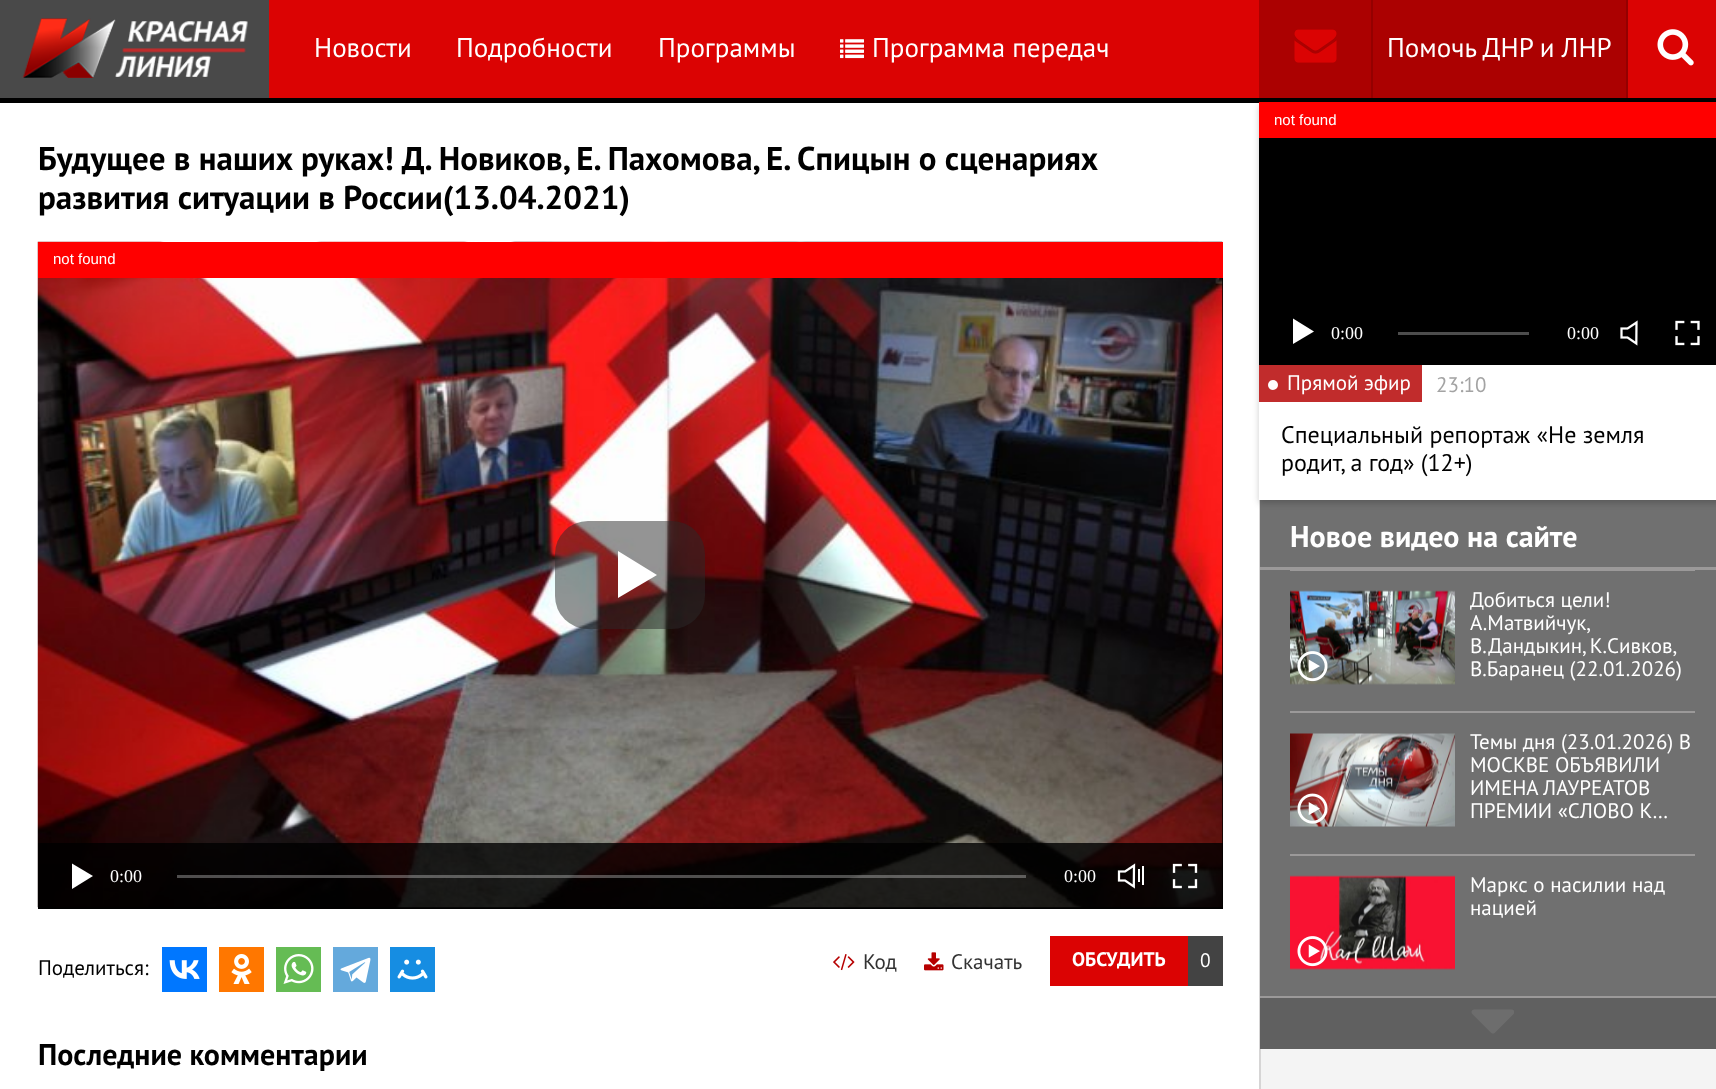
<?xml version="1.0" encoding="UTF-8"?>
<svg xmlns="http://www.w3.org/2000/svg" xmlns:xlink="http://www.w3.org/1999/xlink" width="1716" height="1089">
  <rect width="100%" height="100%" fill="#ffffff" />
  <rect y="98" width="1716" height="5" fill="#000000" />
  <rect x="1259" y="500" width="2" height="589" fill="#d6d5d5" />
  <rect x="1260" y="500" width="456" height="496" fill="#707070" />
  <rect x="1259" y="105" width="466" height="398" fill="#000000" fill-opacity="0.2" filter="blur(3px)" />
  <rect x="269" width="1447" height="98" fill="#db0303" />
  <rect width="269" height="98" fill="#494949" />
  <image x="22" y="18" width="226" height="60" xlink:href="image1.png" />
  <image x="840" y="39" width="24" height="20" xlink:href="image2.png" />
  <rect x="1259" width="367" height="98" fill="#ab0101" />
  <rect x="1626" width="2" height="98" fill="#940000" />
  <image x="1294" y="29" width="43" height="34" xlink:href="image3.png" />
  <rect x="1371" width="2" height="98" fill="#940000" />
  <image x="1657" y="29" width="37" height="37" xlink:href="image4.png" />
  <rect x="38" y="278" width="1185" height="631" fill="#000000" />
  <image x="37" y="241" width="1186" height="667" xlink:href="image5.png" />
  <rect x="38" y="242" width="1185" height="36" fill="#ff0000" />
  <rect x="555" y="521" width="150" height="108" rx="33" fill="#292929" fill-opacity="0.5" />
  <path d="M 618 551 v 47 l 39 -23 z" fill="#ffffff" />
  <rect x="38" y="843" width="1185" height="65" fill="#000000" fill-opacity="0.8" />
  <path d="M 72 863.5 v 25.5 l 21 -13 z" fill="#ffffff" />
  <rect x="177" y="875" width="849" height="3" fill="#ffffff" fill-opacity="0.3" />
  <image x="1117" y="863" width="27" height="26" xlink:href="image6.png" />
  <image x="1172" y="863" width="26" height="26" xlink:href="image7.png" />
  <rect x="162" y="947" width="45" height="45" fill="#0077ff" />
  <image x="169" y="960" width="31" height="19" xlink:href="image8.png" />
  <rect x="219" y="947" width="45" height="45" fill="#ff7700" />
  <image x="231" y="954" width="21" height="30" xlink:href="image9.png" />
  <rect x="276" y="947" width="45" height="45" fill="#65bc54" />
  <image x="283" y="954" width="31" height="30" xlink:href="image10.png" />
  <rect x="333" y="947" width="45" height="45" fill="#64a9dc" />
  <image x="340" y="957" width="31" height="26" xlink:href="image11.png" />
  <rect x="390" y="947" width="45" height="45" fill="#168de2" />
  <image x="397" y="959" width="31" height="21" xlink:href="image12.png" />
  <image x="833" y="954" width="22" height="17" xlink:href="image13.png" />
  <image x="924" y="952" width="20" height="19" xlink:href="image14.png" />
  <rect x="1050" y="936" width="138" height="50" fill="#db0303" />
  <rect x="1188" y="936" width="35" height="50" fill="#434343" />
  <rect x="1259" y="365" width="457" height="135" fill="#ffffff" />
  <rect x="1259" y="138" width="457" height="227" fill="#000000" />
  <rect x="1259" y="102" width="457" height="36" fill="#ff0000" />
  <path d="M 1293 318.5 v 25.5 l 21 -12.5 z" fill="#ffffff" />
  <rect x="1398" y="332" width="131" height="3" fill="#4d4d4d" />
  <image x="1620" y="320" width="18" height="26" xlink:href="image15.png" />
  <image x="1675" y="320" width="25" height="26" xlink:href="image16.png" />
  <rect x="1259" y="365" width="163" height="37" fill="#c12c2c" />
  <circle cx="1273" cy="385" r="5" fill="#ffffff" />
  <rect x="1260" y="567" width="456" height="3" fill="#9b9999" />
  <rect x="1290" y="570" width="405" height="1" fill="#9b9999" />
  <rect x="1290" y="711" width="405" height="2" fill="#9b9999" />
  <image x="1290" y="590" width="165" height="95" xlink:href="image17.png" />
  <image x="1297" y="651" width="31" height="31" xlink:href="image18.png" />
  <rect x="1290" y="854" width="405" height="2" fill="#9b9999" />
  <image x="1290" y="733" width="165" height="94" xlink:href="image19.png" />
  <image x="1297" y="793" width="31" height="31" xlink:href="image20.png" />
  <image x="1290" y="875" width="165" height="95" xlink:href="image21.png" />
  <image x="1297" y="936" width="31" height="31" xlink:href="image22.png" />
  <rect x="1260" y="998" width="456" height="51" fill="#606060" />
  <rect x="1260" y="996" width="456" height="2" fill="#9b9999" />
  <image x="1471" y="1009" width="43" height="25" xlink:href="image23.png" />
  <rect x="1261" y="1049" width="455" height="40" fill="#f4f4f4" />
  <text x="314" y="57" style="font-family: PT Sans; font-size: 27px; fill: #ffffff">Новости</text>
  <text x="456" y="57" style="font-family: PT Sans; font-size: 27px; fill: #ffffff">Подробности</text>
  <text x="658" y="57" style="font-family: PT Sans; font-size: 27px; fill: #ffffff">Программы</text>
  <text x="872" y="57" style="font-family: PT Sans; font-size: 27px; fill: #ffffff">Программа передач</text>
  <text x="1387" y="57" style="font-family: PT Sans; font-size: 27px; fill: #ffffff">Помочь ДНР и ЛНР</text>
  <text x="38" y="170" style="font-family: PT Sans; font-size: 33px; font-weight: bold; fill: #000000">Будущее в наших руках! Д. Новиков, Е. Пахомова, Е. Спицын о сценариях</text>
  <text x="38" y="209" style="font-family: PT Sans; font-size: 33px; font-weight: bold; fill: #000000">развития ситуации в России(13.04.2021)</text>
  <text x="53" y="264" style="font-family: Liberation Sans; font-size: 15px; fill: #ffffff">not found</text>
  <text x="110" y="882" style="font-family: Liberation Serif; font-size: 18px; fill: #ffffff">0:00</text>
  <text x="1064" y="882" style="font-family: Liberation Serif; font-size: 18px; fill: #ffffff">0:00</text>
  <text x="38" y="975" style="font-family: PT Sans; font-size: 21px; fill: #000000">Поделиться:</text>
  <text x="863" y="969" style="font-family: PT Sans; font-size: 21px; fill: #333333">Код</text>
  <text x="951" y="969" style="font-family: PT Sans; font-size: 21px; fill: #333333">Скачать</text>
  <text x="1072" y="966" style="font-family: PT Sans; font-size: 19.5px; font-weight: bold; fill: #ffffff">ОБСУДИТЬ</text>
  <text x="1200" y="967" style="font-family: PT Sans; font-size: 19.5px; fill: #ffffff">0</text>
  <text x="38" y="1065" style="font-family: PT Sans; font-size: 30px; font-weight: bold; fill: #000000">Последние комментарии</text>
  <text x="1274" y="125" style="font-family: Liberation Sans; font-size: 15px; fill: #ffffff">not found</text>
  <text x="1331" y="339" style="font-family: Liberation Serif; font-size: 18px; fill: #ffffff">0:00</text>
  <text x="1567" y="339" style="font-family: Liberation Serif; font-size: 18px; fill: #ffffff">0:00</text>
  <text x="1287" y="390" style="font-family: PT Sans; font-size: 21px; fill: #ffffff">Прямой эфир</text>
  <text x="1436" y="392" style="font-family: PT Sans; font-size: 21px; fill: #a3a3a3">23:10</text>
  <text x="1281" y="443" style="font-family: PT Sans; font-size: 24px; fill: #000000">Специальный репортаж «Не земля</text>
  <text x="1281" y="471" style="font-family: PT Sans; font-size: 24px; fill: #000000">родит, а год» (12+)</text>
  <text x="1290" y="547" style="font-family: PT Sans; font-size: 30px; font-weight: bold; fill: #ffffff">Новое видео на сайте</text>
  <text x="1470" y="607" style="font-family: PT Sans; font-size: 21px; fill: #ffffff">Добиться цели!</text>
  <text x="1470" y="630" style="font-family: PT Sans; font-size: 21px; fill: #ffffff">А.Матвийчук,</text>
  <text x="1470" y="653" word-spacing="-1" style="font-family: PT Sans; font-size: 21px; fill: #ffffff">В.Дандыкин, К.Сивков,</text>
  <text x="1470" y="676" style="font-family: PT Sans; font-size: 21px; fill: #ffffff">В.Баранец (22.01.2026)</text>
  <text x="1470" y="749" style="font-family: PT Sans; font-size: 21px; fill: #ffffff">Темы дня (23.01.2026) В</text>
  <text x="1470" y="772" style="font-family: PT Sans; font-size: 21px; fill: #ffffff">МОСКВЕ ОБЪЯВИЛИ</text>
  <text x="1470" y="795" style="font-family: PT Sans; font-size: 21px; fill: #ffffff">ИМЕНА ЛАУРЕАТОВ</text>
  <text x="1470" y="818" style="font-family: PT Sans; font-size: 21px; fill: #ffffff">ПРЕМИИ «СЛОВО К…</text>
  <text x="1470" y="892" style="font-family: PT Sans; font-size: 21px; fill: #ffffff">Маркс о насилии над</text>
  <text x="1470" y="915" style="font-family: PT Sans; font-size: 21px; fill: #ffffff">нацией</text>
</svg>
